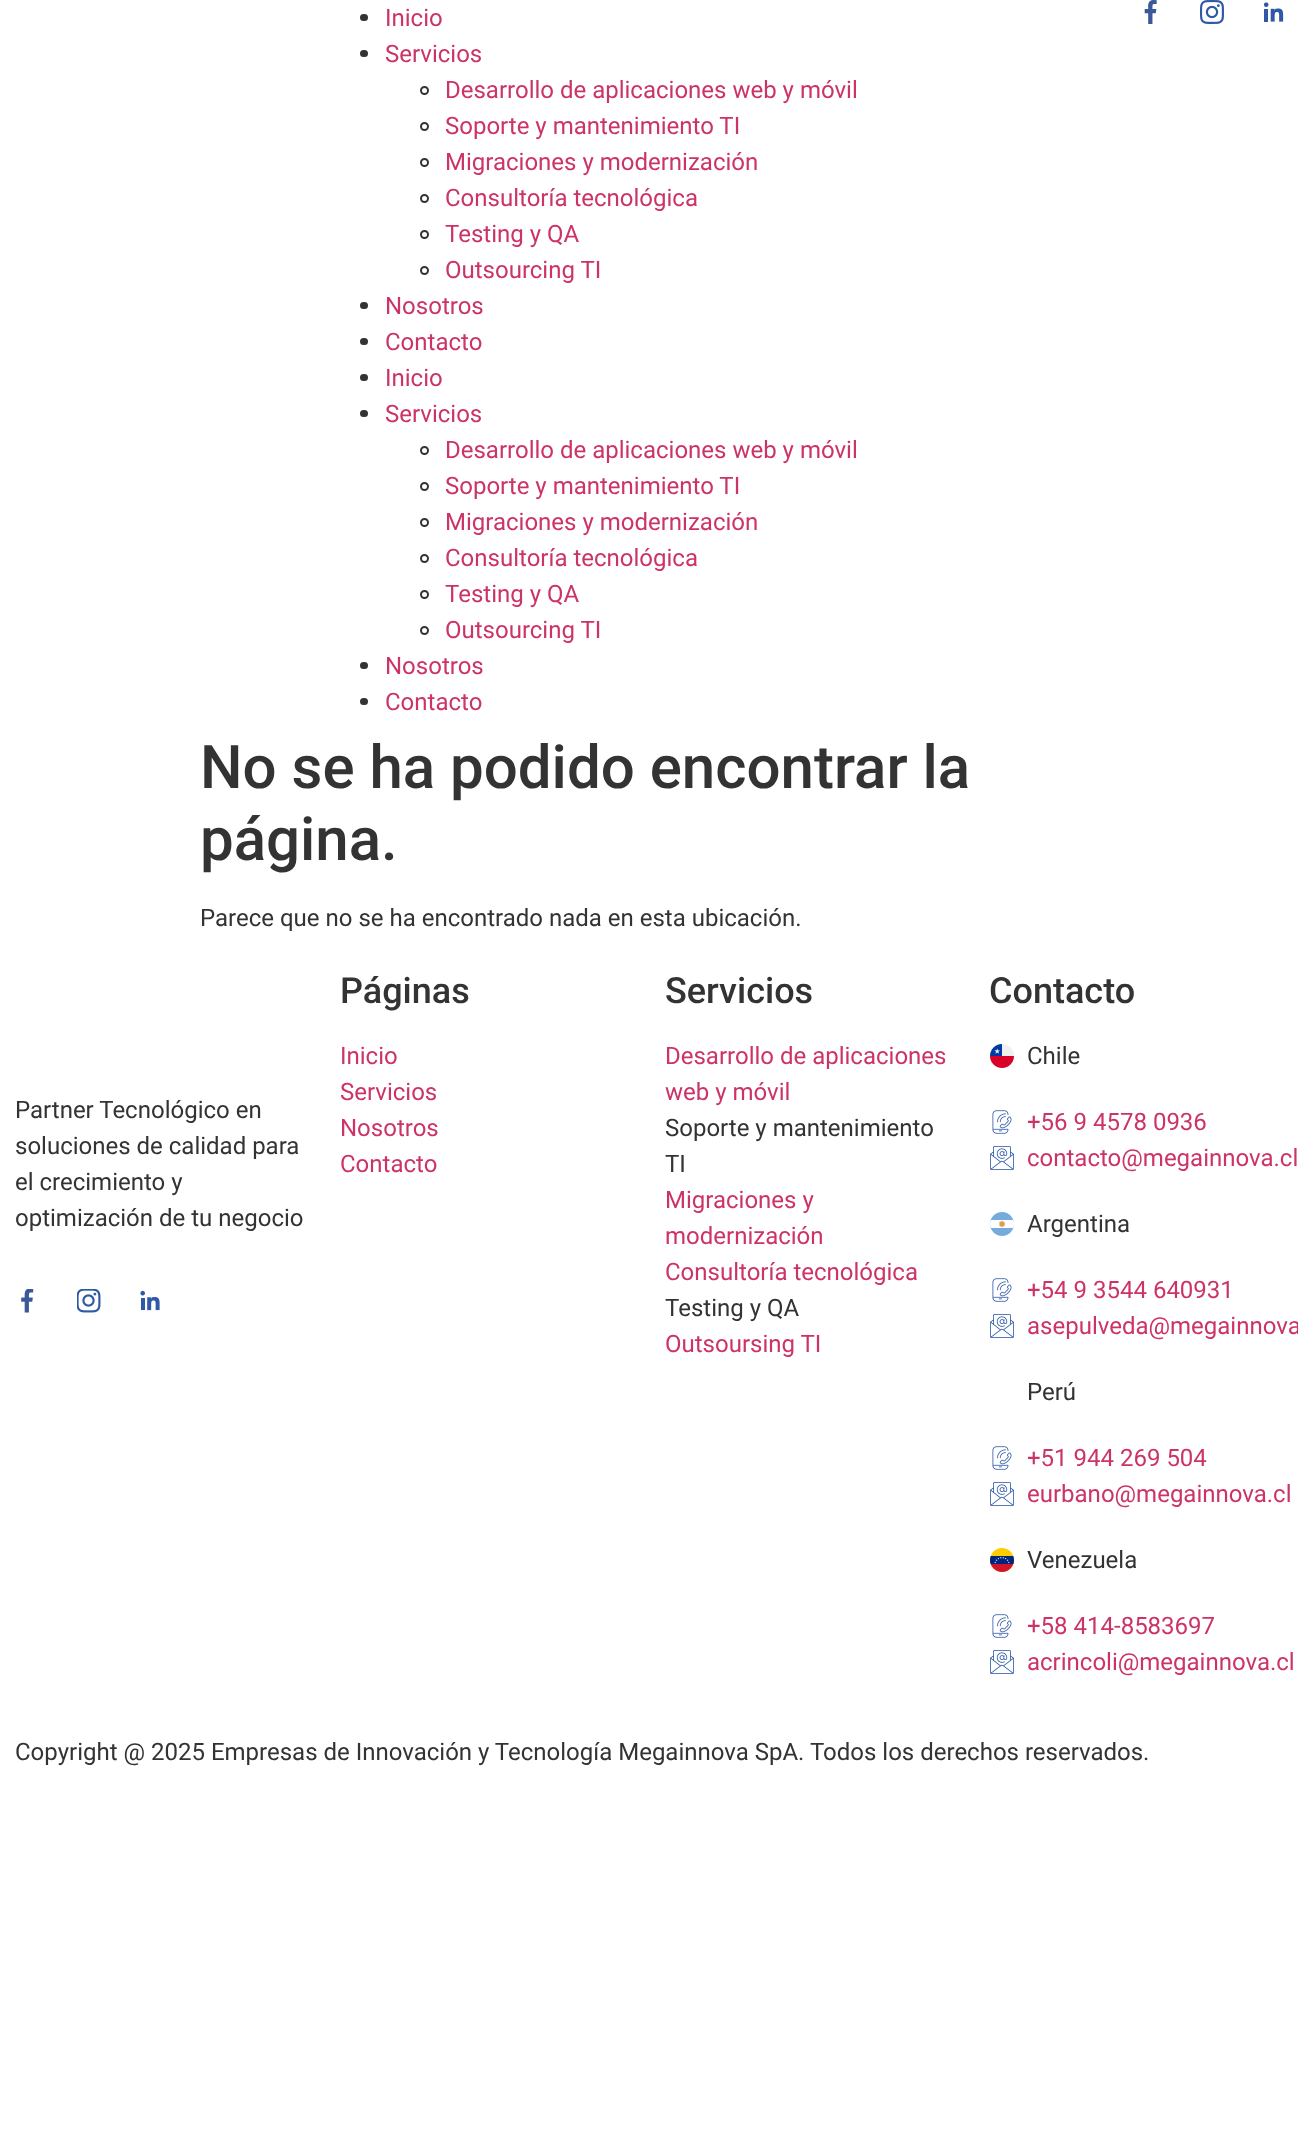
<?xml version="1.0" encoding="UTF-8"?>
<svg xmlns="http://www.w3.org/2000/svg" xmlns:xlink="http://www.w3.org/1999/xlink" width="1298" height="2142">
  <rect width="100%" height="100%" fill="#ffffff" />
  <rect x="360" y="14" width="8" height="7" rx="3.5" fill="#333333" />
  <rect x="360" y="50" width="8" height="7" rx="3.5" fill="#333333" />
  <circle cx="424.5" cy="90.5" r="3.5" fill="none" stroke="#333333" stroke-width="2" />
  <circle cx="424.5" cy="126.5" r="3.5" fill="none" stroke="#333333" stroke-width="2" />
  <circle cx="424.5" cy="162.5" r="3.5" fill="none" stroke="#333333" stroke-width="2" />
  <circle cx="424.5" cy="198.5" r="3.5" fill="none" stroke="#333333" stroke-width="2" />
  <circle cx="424.5" cy="234.5" r="3.5" fill="none" stroke="#333333" stroke-width="2" />
  <circle cx="424.5" cy="270.5" r="3.5" fill="none" stroke="#333333" stroke-width="2" />
  <rect x="360" y="302" width="8" height="7" rx="3.5" fill="#333333" />
  <rect x="360" y="338" width="8" height="7" rx="3.5" fill="#333333" />
  <rect x="360" y="374" width="8" height="7" rx="3.5" fill="#333333" />
  <rect x="360" y="410" width="8" height="7" rx="3.5" fill="#333333" />
  <circle cx="424.5" cy="450.5" r="3.5" fill="none" stroke="#333333" stroke-width="2" />
  <circle cx="424.5" cy="486.5" r="3.5" fill="none" stroke="#333333" stroke-width="2" />
  <circle cx="424.5" cy="522.5" r="3.5" fill="none" stroke="#333333" stroke-width="2" />
  <circle cx="424.5" cy="558.5" r="3.5" fill="none" stroke="#333333" stroke-width="2" />
  <circle cx="424.5" cy="594.5" r="3.5" fill="none" stroke="#333333" stroke-width="2" />
  <circle cx="424.5" cy="630.5" r="3.5" fill="none" stroke="#333333" stroke-width="2" />
  <rect x="360" y="662" width="8" height="7" rx="3.5" fill="#333333" />
  <rect x="360" y="698" width="8" height="7" rx="3.5" fill="#333333" />
  <image x="1144" y="0" width="13" height="24" xlink:href="image1.png" />
  <image x="1200" y="0" width="24" height="24" xlink:href="image2.png" />
  <image x="1263" y="2" width="21" height="20" xlink:href="image3.png" />
  <image x="21" y="1289" width="13" height="24" xlink:href="image4.png" />
  <image x="77" y="1289" width="24" height="24" xlink:href="image5.png" />
  <image x="140" y="1290" width="20" height="21" xlink:href="image6.png" />
  <image x="990" y="1044" width="24" height="24" xlink:href="image7.png" />
  <image x="992" y="1110" width="20" height="24" xlink:href="image8.png" />
  <image x="990" y="1146" width="24" height="24" xlink:href="image9.png" />
  <image x="990" y="1212" width="24" height="24" xlink:href="image10.png" />
  <image x="992" y="1278" width="20" height="24" xlink:href="image8.png" />
  <image x="990" y="1314" width="24" height="24" xlink:href="image9.png" />
  <image x="992" y="1446" width="20" height="24" xlink:href="image8.png" />
  <image x="990" y="1482" width="24" height="24" xlink:href="image9.png" />
  <image x="990" y="1548" width="24" height="24" xlink:href="image11.png" />
  <image x="992" y="1614" width="20" height="24" xlink:href="image8.png" />
  <image x="990" y="1650" width="24" height="24" xlink:href="image9.png" />
  <text x="385" y="26" style="font-family: Roboto; font-size: 24px; fill: #cc3366">Inicio</text>
  <text x="385" y="62" style="font-family: Roboto; font-size: 24px; fill: #cc3366">Servicios</text>
  <text x="445" y="98" style="font-family: Roboto; font-size: 24px; fill: #cc3366">Desarrollo de aplicaciones web y móvil</text>
  <text x="445" y="134" style="font-family: Roboto; font-size: 24px; fill: #cc3366">Soporte y mantenimiento TI</text>
  <text x="445" y="170" style="font-family: Roboto; font-size: 24px; fill: #cc3366">Migraciones y modernización</text>
  <text x="445" y="206" style="font-family: Roboto; font-size: 24px; fill: #cc3366">Consultoría tecnológica</text>
  <text x="445" y="242" style="font-family: Roboto; font-size: 24px; fill: #cc3366">Testing y QA</text>
  <text x="445" y="278" style="font-family: Roboto; font-size: 24px; fill: #cc3366">Outsourcing TI</text>
  <text x="385" y="314" style="font-family: Roboto; font-size: 24px; fill: #cc3366">Nosotros</text>
  <text x="385" y="350" style="font-family: Roboto; font-size: 24px; fill: #cc3366">Contacto</text>
  <text x="385" y="386" style="font-family: Roboto; font-size: 24px; fill: #cc3366">Inicio</text>
  <text x="385" y="422" style="font-family: Roboto; font-size: 24px; fill: #cc3366">Servicios</text>
  <text x="445" y="458" style="font-family: Roboto; font-size: 24px; fill: #cc3366">Desarrollo de aplicaciones web y móvil</text>
  <text x="445" y="494" style="font-family: Roboto; font-size: 24px; fill: #cc3366">Soporte y mantenimiento TI</text>
  <text x="445" y="530" style="font-family: Roboto; font-size: 24px; fill: #cc3366">Migraciones y modernización</text>
  <text x="445" y="566" style="font-family: Roboto; font-size: 24px; fill: #cc3366">Consultoría tecnológica</text>
  <text x="445" y="602" style="font-family: Roboto; font-size: 24px; fill: #cc3366">Testing y QA</text>
  <text x="445" y="638" style="font-family: Roboto; font-size: 24px; fill: #cc3366">Outsourcing TI</text>
  <text x="385" y="674" style="font-family: Roboto; font-size: 24px; fill: #cc3366">Nosotros</text>
  <text x="385" y="710" style="font-family: Roboto; font-size: 24px; fill: #cc3366">Contacto</text>
  <text x="200" y="788" style="font-family: Roboto; font-size: 60px; font-weight: 500; fill: #333333">No se ha podido encontrar la</text>
  <text x="200" y="860" style="font-family: Roboto; font-size: 60px; font-weight: 500; fill: #333333">página.</text>
  <text x="200" y="926" style="font-family: Roboto; font-size: 24px; fill: #333333">Parece que no se ha encontrado nada en esta ubicación.</text>
  <text x="15" y="1118" style="font-family: Roboto; font-size: 24px; fill: #333333">Partner Tecnológico en</text>
  <text x="15" y="1154" style="font-family: Roboto; font-size: 24px; fill: #333333">soluciones de calidad para</text>
  <text x="15" y="1190" style="font-family: Roboto; font-size: 24px; fill: #333333">el crecimiento y</text>
  <text x="15" y="1226" style="font-family: Roboto; font-size: 24px; fill: #333333">optimización de tu negocio</text>
  <text x="340" y="1003" style="font-family: Roboto; font-size: 36px; font-weight: 500; fill: #333333">Páginas</text>
  <text x="340" y="1064" style="font-family: Roboto; font-size: 24px; fill: #cc3366">Inicio</text>
  <text x="340" y="1100" style="font-family: Roboto; font-size: 24px; fill: #cc3366">Servicios</text>
  <text x="340" y="1136" style="font-family: Roboto; font-size: 24px; fill: #cc3366">Nosotros</text>
  <text x="340" y="1172" style="font-family: Roboto; font-size: 24px; fill: #cc3366">Contacto</text>
  <text x="665" y="1003" style="font-family: Roboto; font-size: 36px; font-weight: 500; fill: #333333">Servicios</text>
  <text x="665" y="1064" style="font-family: Roboto; font-size: 24px; fill: #cc3366">Desarrollo de aplicaciones</text>
  <text x="665" y="1100" style="font-family: Roboto; font-size: 24px; fill: #cc3366">web y móvil</text>
  <text x="665" y="1136" style="font-family: Roboto; font-size: 24px; fill: #333333">Soporte y mantenimiento</text>
  <text x="665" y="1172" style="font-family: Roboto; font-size: 24px; fill: #333333">TI</text>
  <text x="665" y="1208" style="font-family: Roboto; font-size: 24px; fill: #cc3366">Migraciones y</text>
  <text x="665" y="1244" style="font-family: Roboto; font-size: 24px; fill: #cc3366">modernización</text>
  <text x="665" y="1280" style="font-family: Roboto; font-size: 24px; fill: #cc3366">Consultoría tecnológica</text>
  <text x="665" y="1316" style="font-family: Roboto; font-size: 24px; fill: #333333">Testing y QA</text>
  <text x="665" y="1352" style="font-family: Roboto; font-size: 24px; fill: #cc3366">Outsoursing TI</text>
  <text x="989" y="1003" style="font-family: Roboto; font-size: 36px; font-weight: 500; fill: #333333">Contacto</text>
  <text x="1027" y="1064" style="font-family: Roboto; font-size: 24px; fill: #333333">Chile</text>
  <text x="1027" y="1130" style="font-family: Roboto; font-size: 24px; fill: #cc3366">+56 9 4578 0936</text>
  <text x="1027" y="1166" style="font-family: Roboto; font-size: 24px; fill: #cc3366">contacto@megainnova.cl</text>
  <text x="1027" y="1232" style="font-family: Roboto; font-size: 24px; fill: #333333">Argentina</text>
  <text x="1027" y="1298" style="font-family: Roboto; font-size: 24px; fill: #cc3366">+54 9 3544 640931</text>
  <text x="1027" y="1334" style="font-family: Roboto; font-size: 24px; fill: #cc3366">asepulveda@megainnova</text>
  <text x="1027" y="1400" style="font-family: Roboto; font-size: 24px; fill: #333333">Perú</text>
  <text x="1027" y="1466" style="font-family: Roboto; font-size: 24px; fill: #cc3366">+51 944 269 504</text>
  <text x="1027" y="1502" style="font-family: Roboto; font-size: 24px; fill: #cc3366">eurbano@megainnova.cl</text>
  <text x="1027" y="1568" style="font-family: Roboto; font-size: 24px; fill: #333333">Venezuela</text>
  <text x="1027" y="1634" style="font-family: Roboto; font-size: 24px; fill: #cc3366">+58 414-8583697</text>
  <text x="1027" y="1670" style="font-family: Roboto; font-size: 24px; fill: #cc3366">acrincoli@megainnova.cl</text>
  <text x="15" y="1760" style="font-family: Roboto; font-size: 24px; fill: #333333">Copyright @ 2025 Empresas de Innovación y Tecnología Megainnova SpA. Todos los derechos reservados.</text>
</svg>
